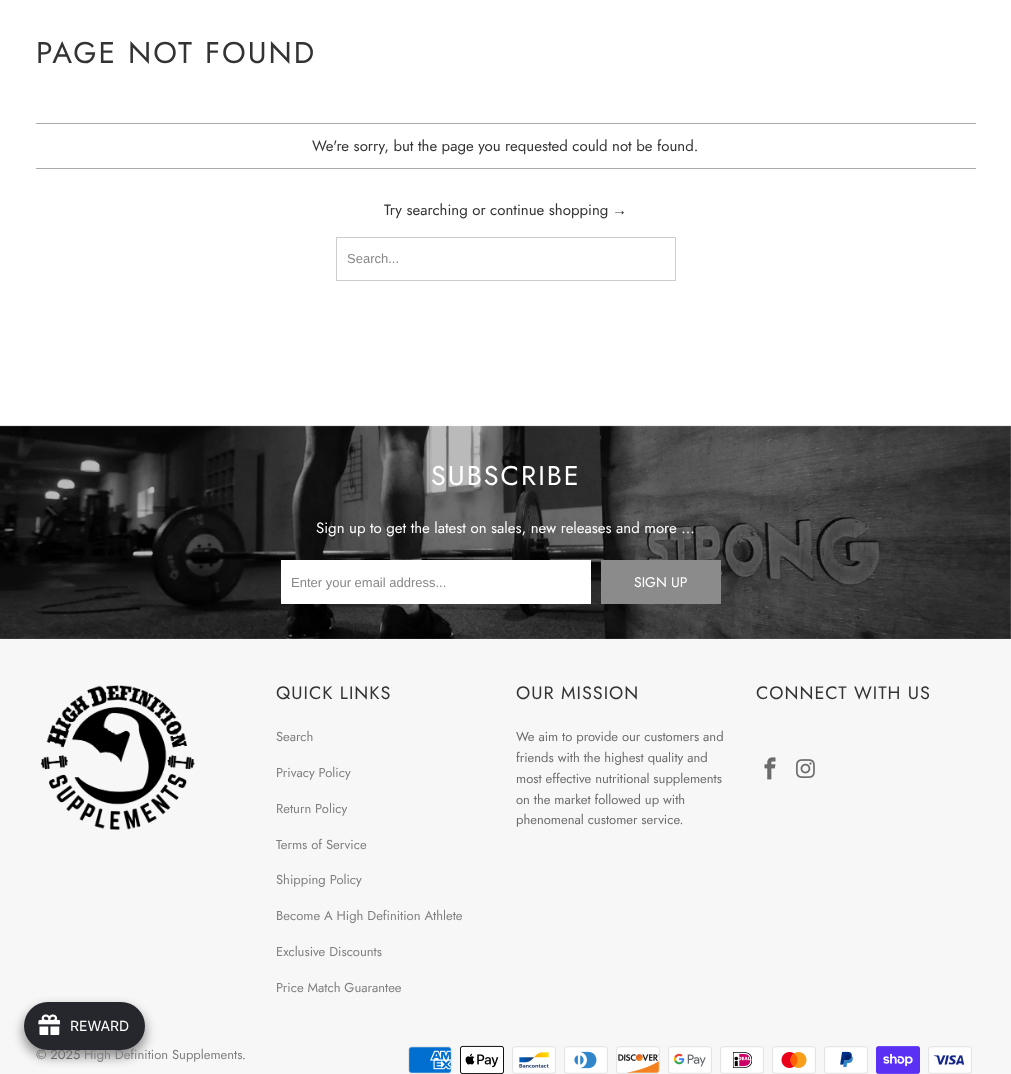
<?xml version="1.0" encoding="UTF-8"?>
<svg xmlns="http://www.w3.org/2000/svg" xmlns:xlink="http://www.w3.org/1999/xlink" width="1011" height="1074">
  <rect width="100%" height="100%" fill="#ffffff" />
  <rect x="36" y="123" width="940" height="1" fill="#aaaaaa" />
  <rect x="36" y="168" width="940" height="1" fill="#aaaaaa" />
  <rect x="336.5" y="237.5" width="339" height="43" fill="none" stroke="#cccccc" />
  <image x="0" y="425" width="1011" height="214" xlink:href="image1.png" />
  <rect x="281" y="560" width="310" height="44" fill="#ffffff" />
  <rect x="601" y="560" width="120" height="44" fill="#8b8b8b" />
  <rect y="639" width="1011" height="435" fill="#f7f7f7" />
  <image x="41" y="685" width="154" height="145" xlink:href="image2.png" />
  <image x="764" y="757" width="12" height="23" xlink:href="image3.png" />
  <image x="796" y="759" width="19" height="19" xlink:href="image4.png" />
  <image x="408" y="1046" width="44" height="28" xlink:href="image5.png" />
  <image x="460" y="1045" width="44" height="29" xlink:href="image6.png" />
  <image x="512" y="1046" width="44" height="28" xlink:href="image7.png" />
  <image x="564" y="1046" width="44" height="28" xlink:href="image8.png" />
  <image x="616" y="1046" width="44" height="28" xlink:href="image9.png" />
  <image x="668" y="1046" width="44" height="28" xlink:href="image10.png" />
  <image x="720" y="1046" width="44" height="28" xlink:href="image11.png" />
  <image x="772" y="1046" width="44" height="28" xlink:href="image12.png" />
  <image x="824" y="1046" width="44" height="28" xlink:href="image13.png" />
  <image x="876" y="1046" width="44" height="28" xlink:href="image14.png" />
  <image x="928" y="1046" width="44" height="28" xlink:href="image15.png" />
  <rect x="24" y="1008" width="121" height="48" rx="24" fill="#000000" fill-opacity="0.25" filter="blur(6px)" />
  <rect x="24" y="1008" width="121" height="48" rx="24" fill="#000000" fill-opacity="0.25" filter="blur(6px)" />
  <text x="36" y="63" style="font-family: Jost; font-size: 30px; letter-spacing: 2px; fill: #333333">PAGE NOT FOUND</text>
  <text x="312" y="151" style="font-family: Jost; font-size: 15px; fill: #333333">We're sorry, but the page you requested could not be found.</text>
  <text x="384" y="215" style="font-family: Jost; font-size: 15px; fill: #333333">Try searching or continue shopping</text>
  <text x="612" y="215" style="font-family: Liberation Sans; font-size: 15px; fill: #333333">→</text>
  <text x="347" y="263" style="font-family: Liberation Sans; font-size: 13px; fill: #888888">Search...</text>
  <text x="431" y="485" style="font-family: Jost; font-size: 27px; letter-spacing: 2px; fill: #ffffff">SUBSCRIBE</text>
  <text x="316" y="533" style="font-family: Jost; font-size: 15px; fill: #ffffff">Sign up to get the latest on sales, new releases and more …</text>
  <text x="291" y="587" style="font-family: Liberation Sans; font-size: 13px; fill: #888888">Enter your email address...</text>
  <text x="634" y="587" style="font-family: Jost; font-size: 14px; fill: #ffffff">SIGN UP</text>
  <text x="276" y="699" style="font-family: Jost; font-size: 18px; letter-spacing: 1px; fill: #333333">QUICK LINKS</text>
  <text x="276" y="741" style="font-family: Jost; font-size: 13px; fill: #7e7e7e">Search</text>
  <text x="276" y="777" style="font-family: Jost; font-size: 13px; fill: #7e7e7e">Privacy Policy</text>
  <text x="276" y="813" style="font-family: Jost; font-size: 13px; fill: #7e7e7e">Return Policy</text>
  <text x="276" y="849" style="font-family: Jost; font-size: 13px; fill: #7e7e7e">Terms of Service</text>
  <text x="276" y="884" style="font-family: Jost; font-size: 13px; fill: #7e7e7e">Shipping Policy</text>
  <text x="276" y="920" style="font-family: Jost; font-size: 13px; fill: #7e7e7e">Become A High Definition Athlete</text>
  <text x="276" y="956" style="font-family: Jost; font-size: 13px; fill: #7e7e7e">Exclusive Discounts</text>
  <text x="276" y="992" style="font-family: Jost; font-size: 13px; fill: #7e7e7e">Price Match Guarantee</text>
  <text x="516" y="699" style="font-family: Jost; font-size: 18px; letter-spacing: 1px; fill: #333333">OUR MISSION</text>
  <text x="516" y="741" style="font-family: Jost; font-size: 13px; fill: #6b6b6b">We aim to provide our customers and</text>
  <text x="516" y="762" style="font-family: Jost; font-size: 13px; fill: #6b6b6b">friends with the highest quality and</text>
  <text x="516" y="783" style="font-family: Jost; font-size: 13px; fill: #6b6b6b">most effective nutritional supplements</text>
  <text x="516" y="804" style="font-family: Jost; font-size: 13px; fill: #6b6b6b">on the market followed up with</text>
  <text x="516" y="824" style="font-family: Jost; font-size: 13px; fill: #6b6b6b">phenomenal customer service.</text>
  <text x="756" y="699" style="font-family: Jost; font-size: 18px; letter-spacing: 1px; fill: #333333">CONNECT WITH US</text>
  <text x="36" y="1059" style="font-family: Jost; font-size: 13px; fill: #6b6b6b">© 2025</text>
  <text x="84" y="1059" style="font-family: Jost; font-size: 13px; fill: #7e7e7e">High Definition Supplements</text>
  <text x="242" y="1059" style="font-family: Jost; font-size: 13px; fill: #6b6b6b">.</text>
  <rect x="24" y="1002" width="121" height="48" rx="24" fill="#25272c" />
  <image x="38" y="1014" width="22" height="21" xlink:href="image16.png" />
  <text x="70" y="1031" style="font-family: Inter; font-size: 14px; fill: #ffffff">REWARD</text>
</svg>
